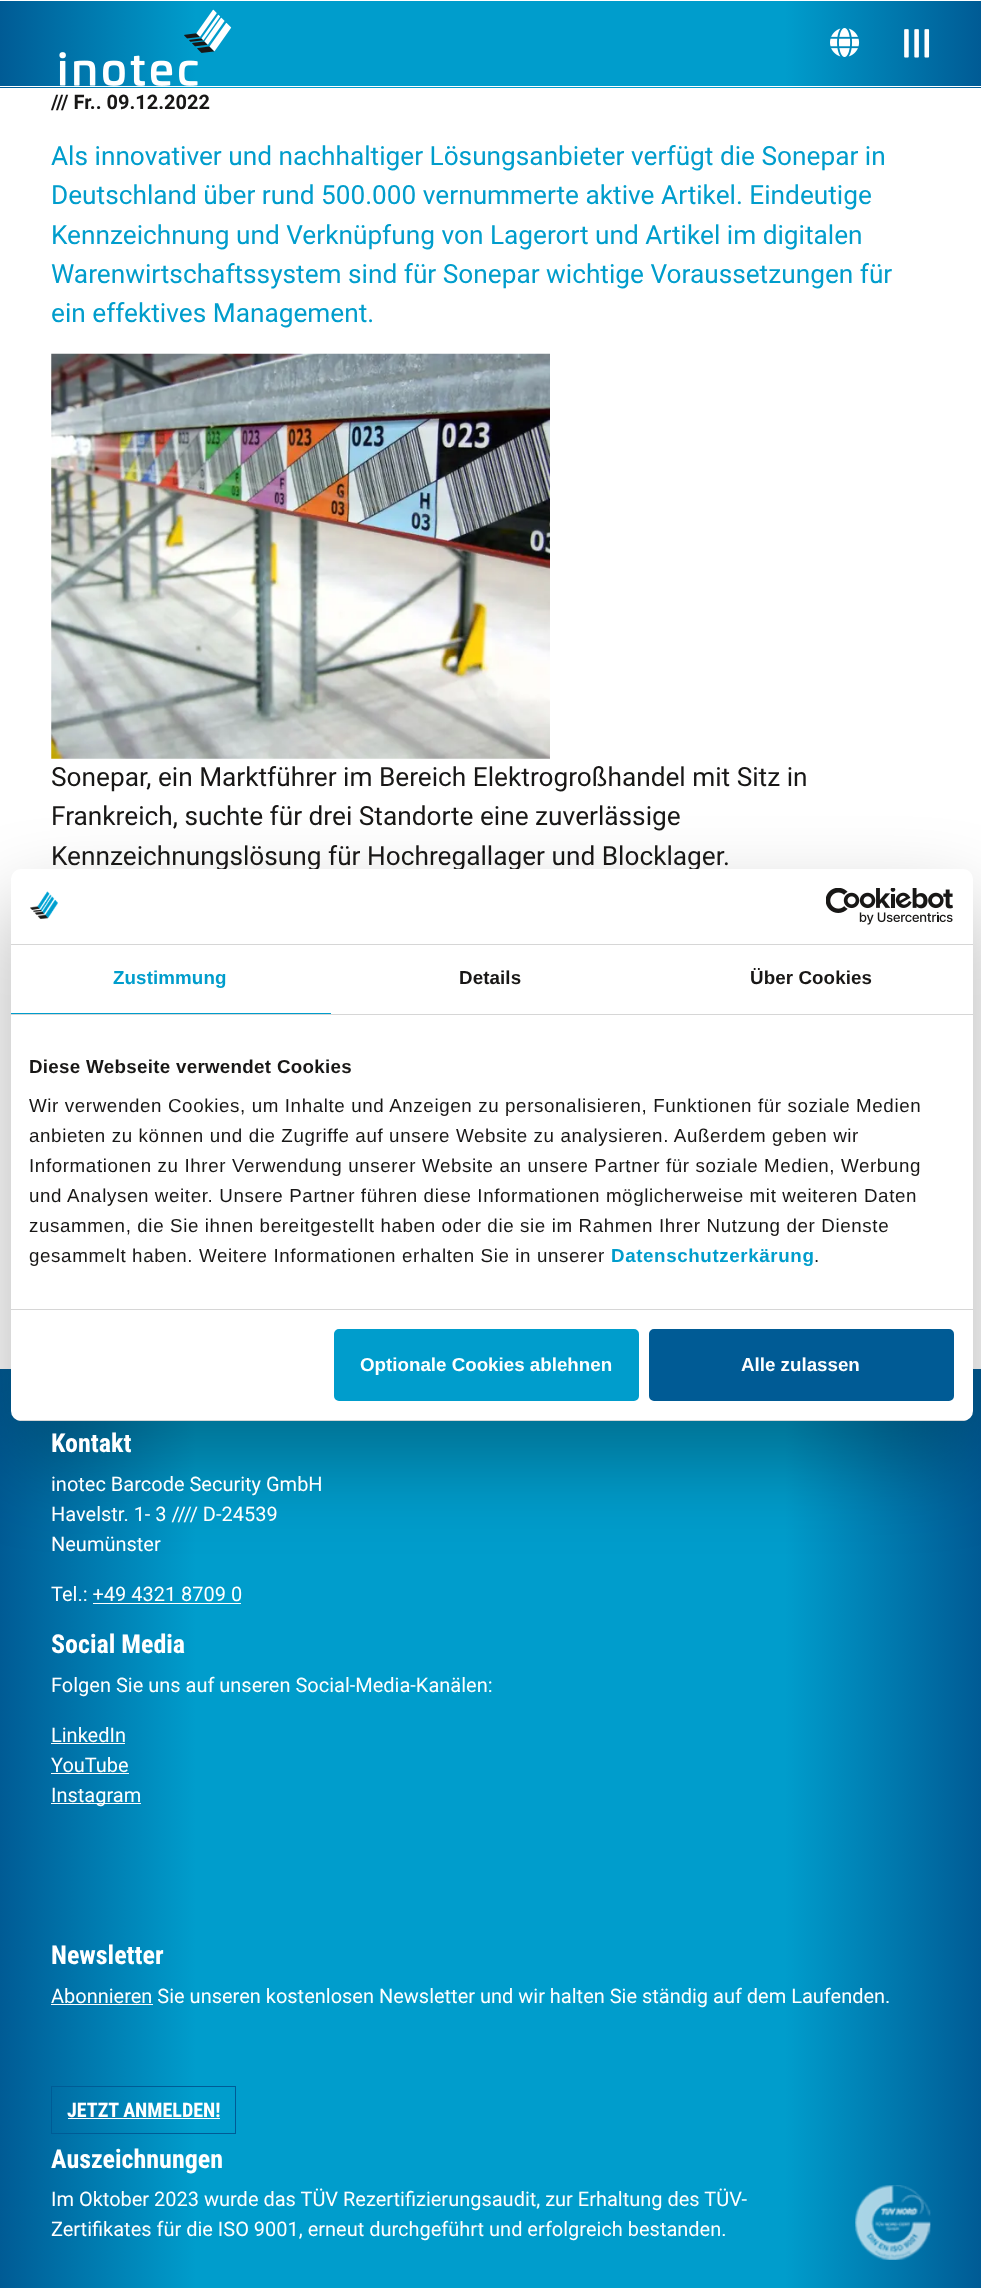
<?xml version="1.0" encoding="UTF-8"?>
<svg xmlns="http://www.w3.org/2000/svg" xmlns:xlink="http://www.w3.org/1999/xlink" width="981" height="2288">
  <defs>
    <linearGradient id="g1" gradientUnits="userSpaceOnUse" x1="0" y1="44" x2="981" y2="44"><stop offset="0" stop-color="#005b95" /><stop offset="0.2" stop-color="#009dcc" /><stop offset="0.8" stop-color="#009dcc" /><stop offset="1" stop-color="#005b95" /></linearGradient>
    <linearGradient id="g2" gradientUnits="userSpaceOnUse" x1="0" y1="2037" x2="981" y2="2037"><stop offset="0" stop-color="#005b95" /><stop offset="0.2" stop-color="#009dcc" /><stop offset="0.8" stop-color="#009dcc" /><stop offset="1" stop-color="#005b95" /></linearGradient>
    <clipPath id="clip1"><rect x="11" y="869" width="962" height="552" rx="10" /></clipPath>
  </defs>
  <rect width="100%" height="100%" fill="#ffffff" />
  <rect y="1" width="981" height="87" fill="url(#g1)" />
  <rect y="86" width="981" height="1" fill="#ffffff" />
  <image x="59" y="9" width="173" height="77" xlink:href="image1.png" />
  <image x="904" y="29" width="26" height="29" xlink:href="image2.png" />
  <image x="830" y="28" width="30" height="29" xlink:href="image3.png" />
  <image x="51" y="353" width="499" height="406" xlink:href="image4.png" />
  <rect y="1369" width="981" height="919" fill="url(#g2)" />
  <rect x="93" y="1603" width="148" height="1" fill="#ffffff" />
  <rect x="51" y="1743" width="74" height="1" fill="#ffffff" />
  <rect x="51" y="1773" width="78" height="1" fill="#ffffff" />
  <rect x="51" y="1803" width="90" height="1" fill="#ffffff" />
  <rect x="51" y="2004" width="102" height="1" fill="#ffffff" />
  <rect x="51.5" y="2086.5" width="184" height="47" fill="none" stroke="#005b95" />
  <rect x="68" y="2118" width="152" height="1" fill="#ffffff" />
  <image x="855" y="2185" width="76" height="75" xlink:href="image5.png" />
  <rect x="11" y="909" width="962" height="552" rx="10" fill="#000000" fill-opacity="0.3" filter="blur(42.5px)" />
  <text x="51" y="109" style="font-family: Roboto; font-size: 20px; font-weight: bold; fill: #181716">/// Fr.. 09.12.2022</text>
  <text x="51" y="165" style="font-family: Roboto; font-size: 26.25px; fill: #009dcc">Als innovativer und nachhaltiger Lösungsanbieter verfügt die Sonepar in</text>
  <text x="51" y="204" style="font-family: Roboto; font-size: 26.25px; fill: #009dcc">Deutschland über rund 500.000 vernummerte aktive Artikel. Eindeutige</text>
  <text x="51" y="244" style="font-family: Roboto; font-size: 26.25px; fill: #009dcc">Kennzeichnung und Verknüpfung von Lagerort und Artikel im digitalen</text>
  <text x="51" y="283" style="font-family: Roboto; font-size: 26.25px; fill: #009dcc">Warenwirtschaftssystem sind für Sonepar wichtige Voraussetzungen für</text>
  <text x="51" y="322" style="font-family: Roboto; font-size: 26.25px; fill: #009dcc">ein effektives Management.</text>
  <text x="51" y="786" style="font-family: Roboto; font-size: 26.25px; fill: #181716">Sonepar, ein Marktführer im Bereich Elektrogroßhandel mit Sitz in</text>
  <text x="51" y="825" style="font-family: Roboto; font-size: 26.25px; fill: #181716">Frankreich, suchte für drei Standorte eine zuverlässige</text>
  <text x="51" y="865" style="font-family: Roboto; font-size: 26.25px; fill: #181716">Kennzeichnungslösung für Hochregallager und Blocklager.</text>
  <text x="51" y="1452" style="font-family: Roboto Condensed; font-size: 26px; font-weight: bold; fill: #ffffff">Kontakt</text>
  <text x="51" y="1491" style="font-family: Roboto; font-size: 20px; fill: #ffffff">inotec Barcode Security GmbH</text>
  <text x="51" y="1521" style="font-family: Roboto; font-size: 20px; fill: #ffffff">Havelstr. 1- 3 //// D-24539</text>
  <text x="51" y="1551" style="font-family: Roboto; font-size: 20px; fill: #ffffff">Neumünster</text>
  <text x="51" y="1601" style="font-family: Roboto; font-size: 20px; fill: #ffffff">Tel.: +49 4321 8709 0</text>
  <text x="51" y="1653" style="font-family: Roboto Condensed; font-size: 26px; font-weight: bold; fill: #ffffff">Social Media</text>
  <text x="51" y="1692" style="font-family: Roboto; font-size: 20px; fill: #ffffff">Folgen Sie uns auf unseren Social-Media-Kanälen:</text>
  <text x="51" y="1742" style="font-family: Roboto; font-size: 20px; fill: #ffffff">LinkedIn</text>
  <text x="51" y="1772" style="font-family: Roboto; font-size: 20px; fill: #ffffff">YouTube</text>
  <text x="51" y="1802" style="font-family: Roboto; font-size: 20px; fill: #ffffff">Instagram</text>
  <text x="51" y="1964" style="font-family: Roboto Condensed; font-size: 26px; font-weight: bold; fill: #ffffff">Newsletter</text>
  <text x="51" y="2003" style="font-family: Roboto; font-size: 20px; fill: #ffffff">Abonnieren Sie unseren kostenlosen Newsletter und wir halten Sie ständig auf dem Laufenden.</text>
  <text x="67" y="2117" style="font-family: Roboto Condensed; font-size: 20px; font-weight: bold; fill: #ffffff">JETZT ANMELDEN!</text>
  <text x="51" y="2168" style="font-family: Roboto Condensed; font-size: 26px; font-weight: bold; fill: #ffffff">Auszeichnungen</text>
  <text x="51" y="2206" style="font-family: Roboto; font-size: 20px; fill: #ffffff">Im Oktober 2023 wurde das TÜV Rezertifizierungsaudit, zur Erhaltung des TÜV-</text>
  <text x="51" y="2236" style="font-family: Roboto; font-size: 20px; fill: #ffffff">Zertifikates für die ISO 9001, erneut durchgeführt und erfolgreich bestanden.</text>
  <rect x="11" y="869" width="962" height="552" rx="10" fill="#ffffff" />
  <rect x="11" y="944" width="962" height="1" fill="#d6d6d6" />
  <image x="30" y="891" width="28" height="28" xlink:href="image6.png" />
  <image x="826" y="888" width="127" height="37" xlink:href="image7.png" />
  <rect x="11" y="1014" width="962" height="1" fill="#d6d6d6" />
  <rect x="11" y="1013" width="320" height="1" fill="#009dcc" />
  <text x="113" y="984" style="font-family: Liberation Sans; font-size: 18.75px; font-weight: bold; letter-spacing: 0.1px; fill: #009dcc">Zustimmung</text>
  <text x="459" y="984" style="font-family: Liberation Sans; font-size: 18.75px; font-weight: bold; letter-spacing: 0.1px; fill: #181716">Details</text>
  <text x="750" y="984" style="font-family: Liberation Sans; font-size: 18.75px; font-weight: bold; letter-spacing: 0.1px; fill: #181716">Über Cookies</text>
  <rect x="11" y="1309" width="962" height="1" fill="#d6d6d6" />
  <text x="29" y="1073" style="font-family: Liberation Sans; font-size: 18.75px; font-weight: bold; letter-spacing: 0.3px; fill: #181716">Diese Webseite verwendet Cookies</text>
  <text x="29" y="1112" style="font-family: Liberation Sans; font-size: 18.75px; letter-spacing: 0.62px; fill: #181716">Wir verwenden Cookies, um Inhalte und Anzeigen zu personalisieren, Funktionen für soziale Medien</text>
  <text x="29" y="1142" style="font-family: Liberation Sans; font-size: 18.75px; letter-spacing: 0.62px; fill: #181716">anbieten zu können und die Zugriffe auf unsere Website zu analysieren. Außerdem geben wir</text>
  <text x="29" y="1172" style="font-family: Liberation Sans; font-size: 18.75px; letter-spacing: 0.62px; fill: #181716">Informationen zu Ihrer Verwendung unserer Website an unsere Partner für soziale Medien, Werbung</text>
  <text x="29" y="1202" style="font-family: Liberation Sans; font-size: 18.75px; letter-spacing: 0.62px; fill: #181716">und Analysen weiter. Unsere Partner führen diese Informationen möglicherweise mit weiteren Daten</text>
  <text x="29" y="1232" style="font-family: Liberation Sans; font-size: 18.75px; letter-spacing: 0.62px; fill: #181716">zusammen, die Sie ihnen bereitgestellt haben oder die sie im Rahmen Ihrer Nutzung der Dienste</text>
  <text x="29" y="1262" style="font-family: Liberation Sans; font-size: 18.75px; letter-spacing: 0.62px; fill: #181716">gesammelt haben. Weitere Informationen erhalten Sie in unserer</text>
  <text x="611" y="1262" style="font-family: Liberation Sans; font-size: 18.75px; font-weight: bold; letter-spacing: 0.62px; fill: #009dcc">Datenschutzerkärung</text>
  <text x="814" y="1262" style="font-family: Liberation Sans; font-size: 18.75px; letter-spacing: 0.62px; fill: #181716">.</text>
  <g clip-path="url(#clip1)">
    <rect x="11" y="1420" width="962" height="1" fill="#d6d6d6" />
  </g>
  <rect x="335.5" y="1330.5" width="302" height="69" rx="3.5" fill="#009dcc" stroke="#009dcc" stroke-width="3" />
  <text x="360" y="1371" style="font-family: Liberation Sans; font-size: 18.75px; font-weight: bold; fill: #ffffff">Optionale Cookies ablehnen</text>
  <rect x="650.5" y="1330.5" width="302" height="69" rx="3.5" fill="#005b95" stroke="#005b95" stroke-width="3" />
  <text x="741" y="1371" style="font-family: Liberation Sans; font-size: 18.75px; font-weight: bold; fill: #ffffff">Alle zulassen</text>
</svg>
